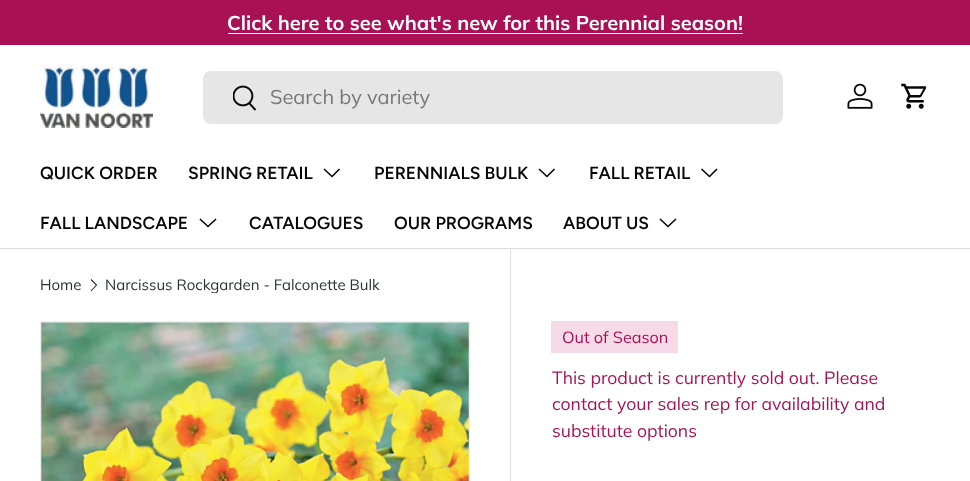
<?xml version="1.0" encoding="UTF-8"?>
<svg xmlns="http://www.w3.org/2000/svg" xmlns:xlink="http://www.w3.org/1999/xlink" width="970" height="481">
  <defs>
    <clipPath id="clip1"><rect x="105" y="278" width="275" height="15" /></clipPath>
  </defs>
  <rect width="100%" height="100%" fill="#ffffff" />
  <rect width="970" height="45" fill="#aa1155" />
  <rect x="228" y="33" width="515" height="1" fill="#ffffff" />
  <rect y="248" width="970" height="1" fill="#dadada" />
  <image x="40" y="65" width="113" height="63" xlink:href="image1.png" />
  <rect x="203" y="71" width="580" height="53" rx="8" fill="#e6e6e6" />
  <image x="233" y="85" width="24" height="26" xlink:href="image2.png" />
  <image x="847" y="83" width="26" height="26" xlink:href="image3.png" />
  <image x="901" y="83" width="26" height="26" xlink:href="image4.png" />
  <path d="M 339.5 169 l -7.5 7.5 l -8 -7.5" fill="none" stroke="#070707" stroke-width="1.6" />
  <path d="M 554.5 169 l -7.5 7.5 l -8 -7.5" fill="none" stroke="#070707" stroke-width="1.6" />
  <path d="M 717 169 l -7.5 7.5 l -8 -7.5" fill="none" stroke="#070707" stroke-width="1.6" />
  <path d="M 216 219 l -8 7.5 l -8 -7.5" fill="none" stroke="#070707" stroke-width="1.6" />
  <path d="M 676 219 l -8 7.5 l -8 -7.5" fill="none" stroke="#070707" stroke-width="1.6" />
  <path d="M 91 279.5 l 5.5 5.5 l -5.5 6" fill="none" stroke="#2e3235" stroke-width="1.1" />
  <rect x="40.5" y="321.5" width="429" height="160" fill="#f4f4f4" stroke="#eeeeee" />
  <image x="41" y="322" width="428" height="159" xlink:href="image5.png" />
  <rect x="510" y="249" width="1" height="232" fill="#e0e0e1" />
  <rect x="551" y="321" width="127" height="32" fill="#f7dae7" />
  <text x="227" y="30" style="font-family: Muli; font-size: 20px; font-weight: bold; fill: #ffffff">Click here to see what's new for this Perennial season!</text>
  <text x="270" y="104" style="font-family: Muli; font-size: 20px; fill: #777777">Search by variety</text>
  <text x="40" y="179" style="font-family: Figtree; font-size: 17.5px; font-weight: 600; fill: #070707">QUICK ORDER</text>
  <text x="188" y="179" style="font-family: Figtree; font-size: 17.5px; font-weight: 600; fill: #070707">SPRING RETAIL</text>
  <text x="374" y="179" style="font-family: Figtree; font-size: 17.5px; font-weight: 600; fill: #070707">PERENNIALS BULK</text>
  <text x="589" y="179" style="font-family: Figtree; font-size: 17.5px; font-weight: 600; fill: #070707">FALL RETAIL</text>
  <text x="40" y="229" style="font-family: Figtree; font-size: 17.5px; font-weight: 600; fill: #070707">FALL LANDSCAPE</text>
  <text x="249" y="229" style="font-family: Figtree; font-size: 17.5px; font-weight: 600; fill: #070707">CATALOGUES</text>
  <text x="394" y="229" style="font-family: Figtree; font-size: 17.5px; font-weight: 600; fill: #070707">OUR PROGRAMS</text>
  <text x="563" y="229" style="font-family: Figtree; font-size: 17.5px; font-weight: 600; fill: #070707">ABOUT US</text>
  <text x="40" y="290" style="font-family: Muli; font-size: 15px; fill: #2e3235">Home</text>
  <g clip-path="url(#clip1)">
    <text x="105" y="290" style="font-family: Muli; font-size: 15px; fill: #2e3235">Narcissus Rockgarden - Falconette Bulk</text>
  </g>
  <text x="562" y="343" style="font-family: Muli; font-size: 16.25px; fill: #aa1155">Out of Season</text>
  <text x="552" y="384" style="font-family: Muli; font-size: 17.6px; fill: #aa1155">This product is currently sold out. Please</text>
  <text x="552" y="410" style="font-family: Muli; font-size: 17.6px; fill: #aa1155">contact your sales rep for availability and</text>
  <text x="552" y="437" style="font-family: Muli; font-size: 17.6px; fill: #aa1155">substitute options</text>
</svg>
